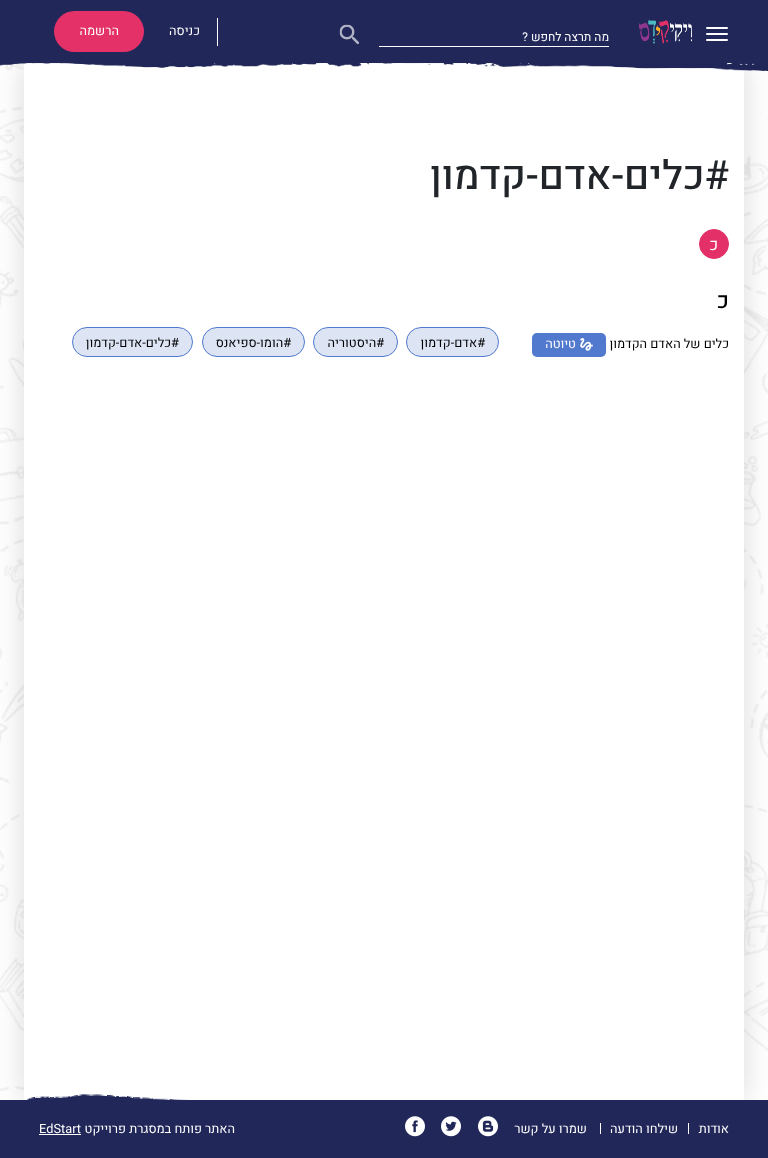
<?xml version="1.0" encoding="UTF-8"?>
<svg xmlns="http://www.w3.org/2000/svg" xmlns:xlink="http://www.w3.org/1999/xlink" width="768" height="1158">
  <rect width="100%" height="100%" fill="#ffffff" />
  <image x="0" y="63" width="768" height="1037" xlink:href="image1.png" />
  <rect x="24" y="63" width="720" height="1037" fill="#000000" fill-opacity="0.15" filter="blur(15px)" />
  <rect width="768" height="63" fill="#212759" />
  <rect x="706" y="27" width="22" height="2" rx="1" fill="#ffffff" />
  <rect x="706" y="33" width="22" height="2" rx="1" fill="#ffffff" />
  <rect x="706" y="39" width="22" height="2" rx="1" fill="#ffffff" />
  <image x="639" y="19" width="53" height="25" xlink:href="image2.png" />
  <rect x="379" y="46" width="230" height="1" fill="#ffffff" />
  <image x="339" y="24" width="21" height="21" xlink:href="image3.png" />
  <rect x="217" y="18" width="1" height="28" fill="#ffffff" />
  <rect x="54" y="11" width="90" height="41" rx="20.5" fill="#e43168" />
  <rect x="24" y="63" width="720" height="1037" fill="#ffffff" />
  <image x="0" y="63" width="768" height="8" xlink:href="image4.png" />
  <circle cx="714" cy="244" r="14.5" fill="#e33068" stroke="#e33068" />
  <rect x="532" y="333" width="74" height="24" rx="5" fill="#5179ce" />
  <image x="580" y="338" width="13" height="13" xlink:href="image5.png" />
  <rect x="406.5" y="327.5" width="92" height="29" rx="14.5" fill="#dde5f5" stroke="#5179ce" />
  <rect x="313.5" y="327.5" width="84" height="29" rx="14.5" fill="#dde5f5" stroke="#5179ce" />
  <rect x="202.5" y="327.5" width="102" height="29" rx="14.5" fill="#dde5f5" stroke="#5179ce" />
  <rect x="72.5" y="327.5" width="120" height="29" rx="14.5" fill="#dde5f5" stroke="#5179ce" />
  <rect y="1100" width="768" height="58" fill="#212759" />
  <image x="27" y="1094" width="163" height="6" xlink:href="image6.png" />
  <rect x="688" y="1123" width="1" height="11" fill="#ffffff" />
  <rect x="600" y="1123" width="1" height="11" fill="#ffffff" />
  <image x="478" y="1116" width="20" height="21" xlink:href="image7.png" />
  <image x="441" y="1116" width="20" height="21" xlink:href="image8.png" />
  <image x="405" y="1116" width="20" height="21" xlink:href="image9.png" />
  <rect x="39" y="1134" width="42" height="1" fill="#ffffff" />
  <text x="609" y="41" style="font-family: Heebo; font-size: 12px; direction: rtl; fill: #ffffff">מה תרצה לחפש ?</text>
  <text x="200" y="35" style="font-family: Heebo; font-size: 12.75px; direction: rtl; fill: #ffffff">כניסה</text>
  <text x="119" y="35" style="font-family: Heebo; font-size: 12.75px; direction: rtl; fill: #ffffff">הרשמה</text>
  <text x="729" y="189" style="font-family: Heebo; font-size: 40px; font-weight: 500; direction: rtl; fill: #212529">#כלים-אדם-קדמון</text>
  <text x="718" y="250" style="font-family: Heebo; font-size: 16px; direction: rtl; fill: #ffffff">כ</text>
  <text x="729" y="308" style="font-family: Heebo; font-size: 22px; font-weight: 500; direction: rtl; fill: #000000">כ</text>
  <text x="729" y="348" style="font-family: Heebo; font-size: 12.75px; direction: rtl; fill: #000000">כלים של האדם הקדמון</text>
  <text x="576" y="348" style="font-family: Heebo; font-size: 12.75px; direction: rtl; fill: #ffffff">טיוטה</text>
  <text x="485" y="347" style="font-family: Heebo; font-size: 12.75px; direction: rtl; fill: #000000">#אדם-קדמון</text>
  <text x="384" y="347" style="font-family: Heebo; font-size: 12.75px; direction: rtl; fill: #000000">#היסטוריה</text>
  <text x="291" y="347" style="font-family: Heebo; font-size: 12.75px; direction: rtl; fill: #000000">#הומו-ספיאנס</text>
  <text x="179" y="347" style="font-family: Heebo; font-size: 12.75px; direction: rtl; fill: #000000">#כלים-אדם-קדמון</text>
  <text x="729" y="1133" style="font-family: Heebo; font-size: 12.75px; direction: rtl; fill: #ffffff">אודות</text>
  <text x="678" y="1133" style="font-family: Heebo; font-size: 12.75px; direction: rtl; fill: #ffffff">שילחו הודעה</text>
  <text x="587" y="1133" style="font-family: Heebo; font-size: 12.75px; direction: rtl; fill: #ffffff">שמרו על קשר</text>
  <text x="235" y="1133" style="font-family: Heebo; font-size: 12.75px; direction: rtl; fill: #ffffff">האתר פותח במסגרת פרוייקט</text>
  <text x="39" y="1133" style="font-family: Heebo; font-size: 12.75px; fill: #ffffff">EdStart</text>
</svg>
